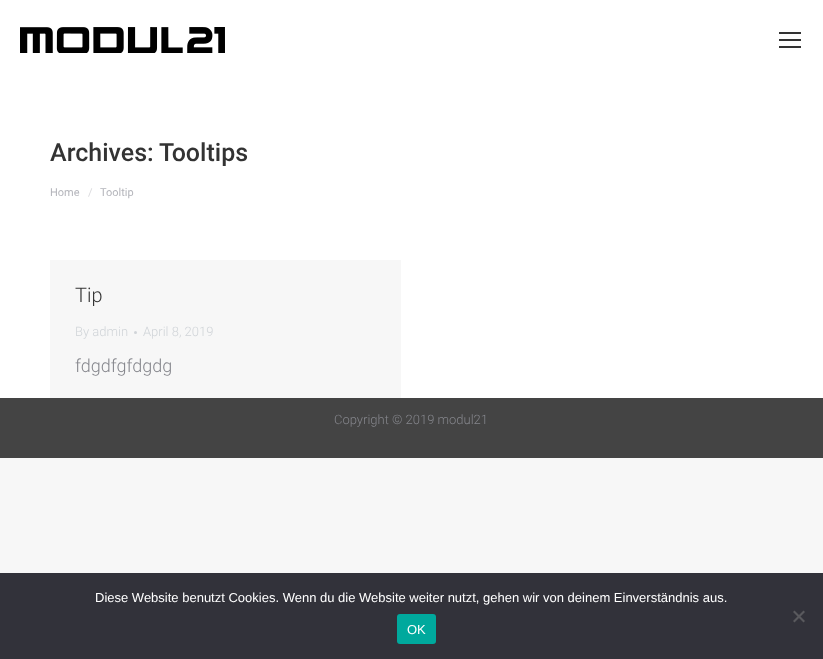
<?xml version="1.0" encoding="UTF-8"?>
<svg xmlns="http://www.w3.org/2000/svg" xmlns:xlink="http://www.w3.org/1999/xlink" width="823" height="659">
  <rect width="100%" height="100%" fill="#f7f7f7" />
  <rect width="823" height="398" fill="#ffffff" />
  <image x="20" y="27" width="205" height="26" xlink:href="image1.png" />
  <rect x="779" y="32" width="22" height="2" fill="#333333" />
  <rect x="779" y="39" width="22" height="2" fill="#333333" />
  <rect x="779" y="46" width="22" height="2" fill="#333333" />
  <rect x="50" y="260" width="351" height="138" fill="#f7f7f7" />
  <circle cx="135.5" cy="332.5" r="1.5" fill="#d0d4d8" />
  <rect y="398" width="823" height="60" fill="#444444" />
  <rect y="573" width="823" height="86" fill="#32323a" />
  <path d="M 803.5 610.5 l 1.5 1.5 l -10.5 10.5 l -1.5 -1.5 z" fill="#59595d" />
  <path d="M 793 612 l 1.5 -1.5 l 10.5 10.5 l -1.5 1.5 z" fill="#59595d" />
  <rect x="397" y="614" width="39" height="30" rx="3" fill="#00a99d" />
  <text x="50" y="161" style="font-family: Roboto; font-size: 25px; font-weight: 500; fill: #333333">Archives:</text>
  <text x="159" y="161" style="font-family: Roboto; font-size: 25px; font-weight: 500; fill: #333333">Tooltips</text>
  <text x="50" y="196" style="font-family: Roboto; font-size: 11px; fill: #b4b5bb">Home</text>
  <text x="88" y="196" style="font-family: Roboto; font-size: 11px; fill: #dadadd">/</text>
  <text x="100" y="196" style="font-family: Roboto; font-size: 11px; fill: #b4b5bb">Tooltip</text>
  <text x="75" y="302" style="font-family: Roboto; font-size: 20px; font-weight: 300; fill: #333333">Tip</text>
  <text x="75" y="336" style="font-family: Roboto; font-size: 13px; font-weight: 300; fill: #d0d4d8">By admin</text>
  <text x="143" y="336" style="font-family: Roboto; font-size: 13px; font-weight: 300; fill: #d0d4d8">April 8, 2019</text>
  <text x="75" y="372" style="font-family: Roboto; font-size: 18px; font-weight: 300; fill: #85868c">fdgdfgfdgdg</text>
  <text x="334" y="424" style="font-family: Roboto; font-size: 13px; font-weight: 300; fill: #85868c">Copyright © 2019 modul21</text>
  <text x="95" y="602" style="font-family: Liberation Sans; font-size: 13px; fill: #ffffff">Diese Website benutzt Cookies. Wenn du die Website weiter nutzt, gehen wir von deinem Einverständnis aus.</text>
  <text x="407" y="634" style="font-family: Liberation Sans; font-size: 13px; fill: #ffffff">OK</text>
</svg>
